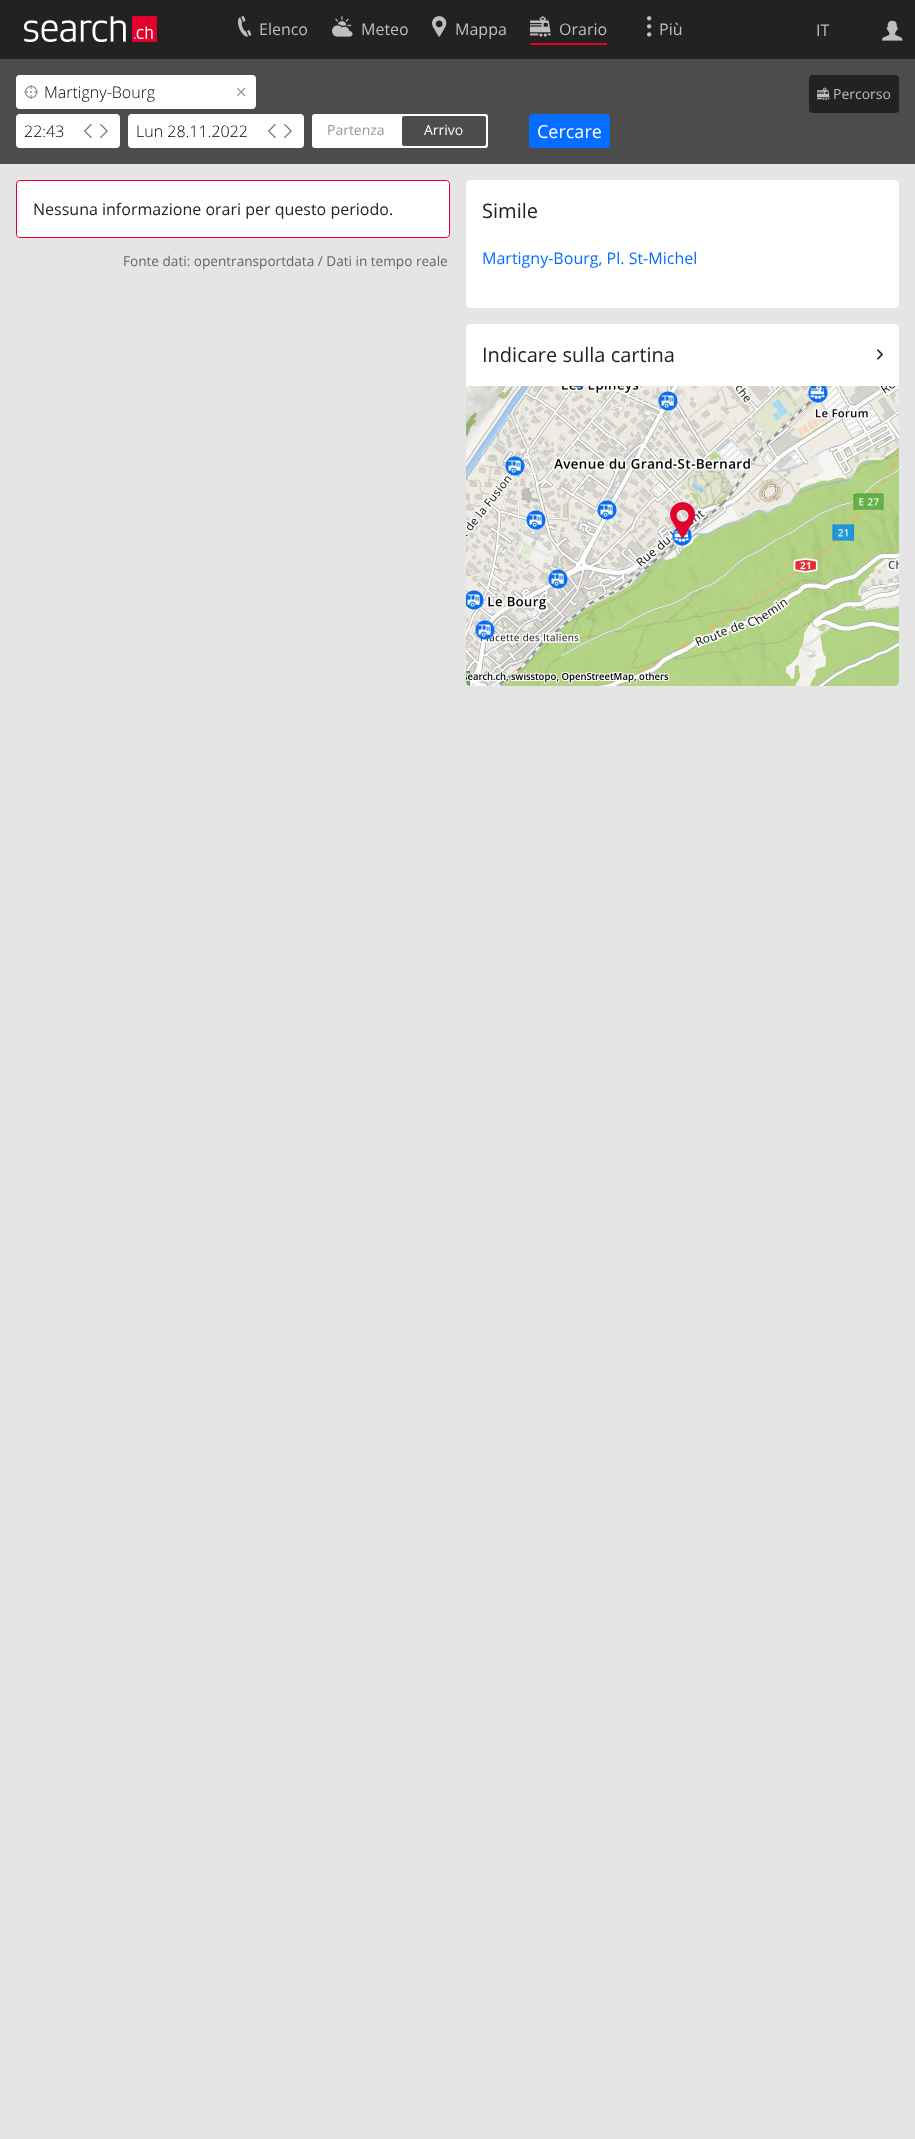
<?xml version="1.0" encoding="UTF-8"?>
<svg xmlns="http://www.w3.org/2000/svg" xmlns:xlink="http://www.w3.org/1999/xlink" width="915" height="2139">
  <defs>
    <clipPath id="clip1"><rect x="17" y="181" width="432" height="56" rx="3" /></clipPath>
  </defs>
  <rect width="100%" height="100%" fill="#e5e5e5" />
  <rect width="915" height="59" fill="#222222" />
  <image x="24" y="16" width="133" height="26" xlink:href="image1.png" />
  <image x="238" y="16" width="14" height="21" xlink:href="image2.png" />
  <image x="332" y="16" width="21" height="21" xlink:href="image3.png" />
  <image x="432" y="16" width="15" height="21" xlink:href="image4.png" />
  <rect x="530" y="43" width="77" height="2" fill="#e4002c" />
  <image x="530" y="16" width="21" height="21" xlink:href="image5.png" />
  <image x="647" y="16" width="5" height="21" xlink:href="image6.png" />
  <image x="882" y="20" width="21" height="21" xlink:href="image7.png" />
  <rect y="59" width="915" height="105" fill="#4c4c4c" />
  <rect x="16" y="75" width="240" height="34" rx="4" fill="#ffffff" />
  <image x="24" y="85" width="15" height="14" xlink:href="image8.png" />
  <image x="237" y="88" width="9" height="8" xlink:href="image9.png" />
  <rect x="16" y="114" width="104" height="34" rx="4" fill="#ffffff" />
  <image x="84" y="123" width="8" height="16" xlink:href="image10.png" />
  <image x="100" y="123" width="8" height="16" xlink:href="image11.png" />
  <rect x="128" y="114" width="176" height="34" rx="4" fill="#ffffff" />
  <image x="268" y="123" width="8" height="16" xlink:href="image10.png" />
  <image x="284" y="123" width="8" height="16" xlink:href="image11.png" />
  <rect x="312" y="114" width="176" height="34" rx="3" fill="#ffffff" />
  <rect x="401" y="115" width="86" height="32" rx="3" fill="#4c4c4c" stroke="#ffffff" stroke-width="2" />
  <rect x="529" y="114" width="81" height="34" rx="4" fill="#056dff" />
  <rect x="809" y="75" width="90" height="38" rx="4" fill="#222222" />
  <image x="817" y="87" width="13" height="13" xlink:href="image12.png" />
  <rect x="16.5" y="180.5" width="433" height="57" rx="3.5" fill="#ffffff" stroke="#e4002c" />
  <g clip-path="url(#clip1)">
    <rect x="17" y="181" width="432" height="56" rx="4" fill="#ffffff" />
  </g>
  <rect x="466" y="180" width="433" height="128" rx="4" fill="#ffffff" />
  <rect x="466" y="324" width="433" height="362" rx="4" fill="#ffffff" />
  <image x="877" y="349" width="6" height="11" xlink:href="image13.png" />
  <image x="466" y="386" width="433" height="300" xlink:href="image14.png" />
  <text x="259" y="35" style="font-family: Open Sans; font-size: 16px; fill: #bfbfbf">Elenco</text>
  <text x="361" y="35" style="font-family: Open Sans; font-size: 16px; fill: #bfbfbf">Meteo</text>
  <text x="455" y="35" style="font-family: Open Sans; font-size: 16px; fill: #bfbfbf">Mappa</text>
  <text x="559" y="35" style="font-family: Open Sans; font-size: 16px; fill: #bfbfbf">Orario</text>
  <text x="659" y="35" style="font-family: Open Sans; font-size: 16px; fill: #bfbfbf">Più</text>
  <text x="816" y="36" style="font-family: Open Sans; font-size: 16px; fill: #bfbfbf">IT</text>
  <text x="44" y="98" style="font-family: Open Sans; font-size: 16px; font-weight: 300; fill: #000000">Martigny-Bourg</text>
  <text x="24" y="137" style="font-family: Open Sans; font-size: 16px; font-weight: 300; fill: #000000">22:43</text>
  <text x="136" y="137" style="font-family: Open Sans; font-size: 16px; font-weight: 300; fill: #000000">Lun 28.11.2022</text>
  <text x="327" y="135" style="font-family: Open Sans; font-size: 14px; fill: #999999">Partenza</text>
  <text x="424" y="135" style="font-family: Open Sans; font-size: 14px; fill: #ffffff">Arrivo</text>
  <text x="537" y="138" style="font-family: Open Sans; font-size: 18px; fill: #ffffff">Cercare</text>
  <text x="833" y="99" style="font-family: Open Sans; font-size: 14px; fill: #bfbfbf">Percorso</text>
  <text x="33" y="215" style="font-family: Open Sans; font-size: 16px; fill: #222222">Nessuna informazione orari per questo periodo.</text>
  <text x="123" y="266" style="font-family: Open Sans; font-size: 13.6px; fill: #666666">Fonte dati: opentransportdata / Dati in tempo reale</text>
  <text x="482" y="218" style="font-family: Open Sans; font-size: 20px; fill: #222222">Simile</text>
  <text x="482" y="264" style="font-family: Open Sans; font-size: 16px; fill: #056dff">Martigny-Bourg, Pl. St-Michel</text>
  <text x="482" y="362" style="font-family: Open Sans; font-size: 20px; fill: #222222">Indicare sulla cartina</text>
</svg>
